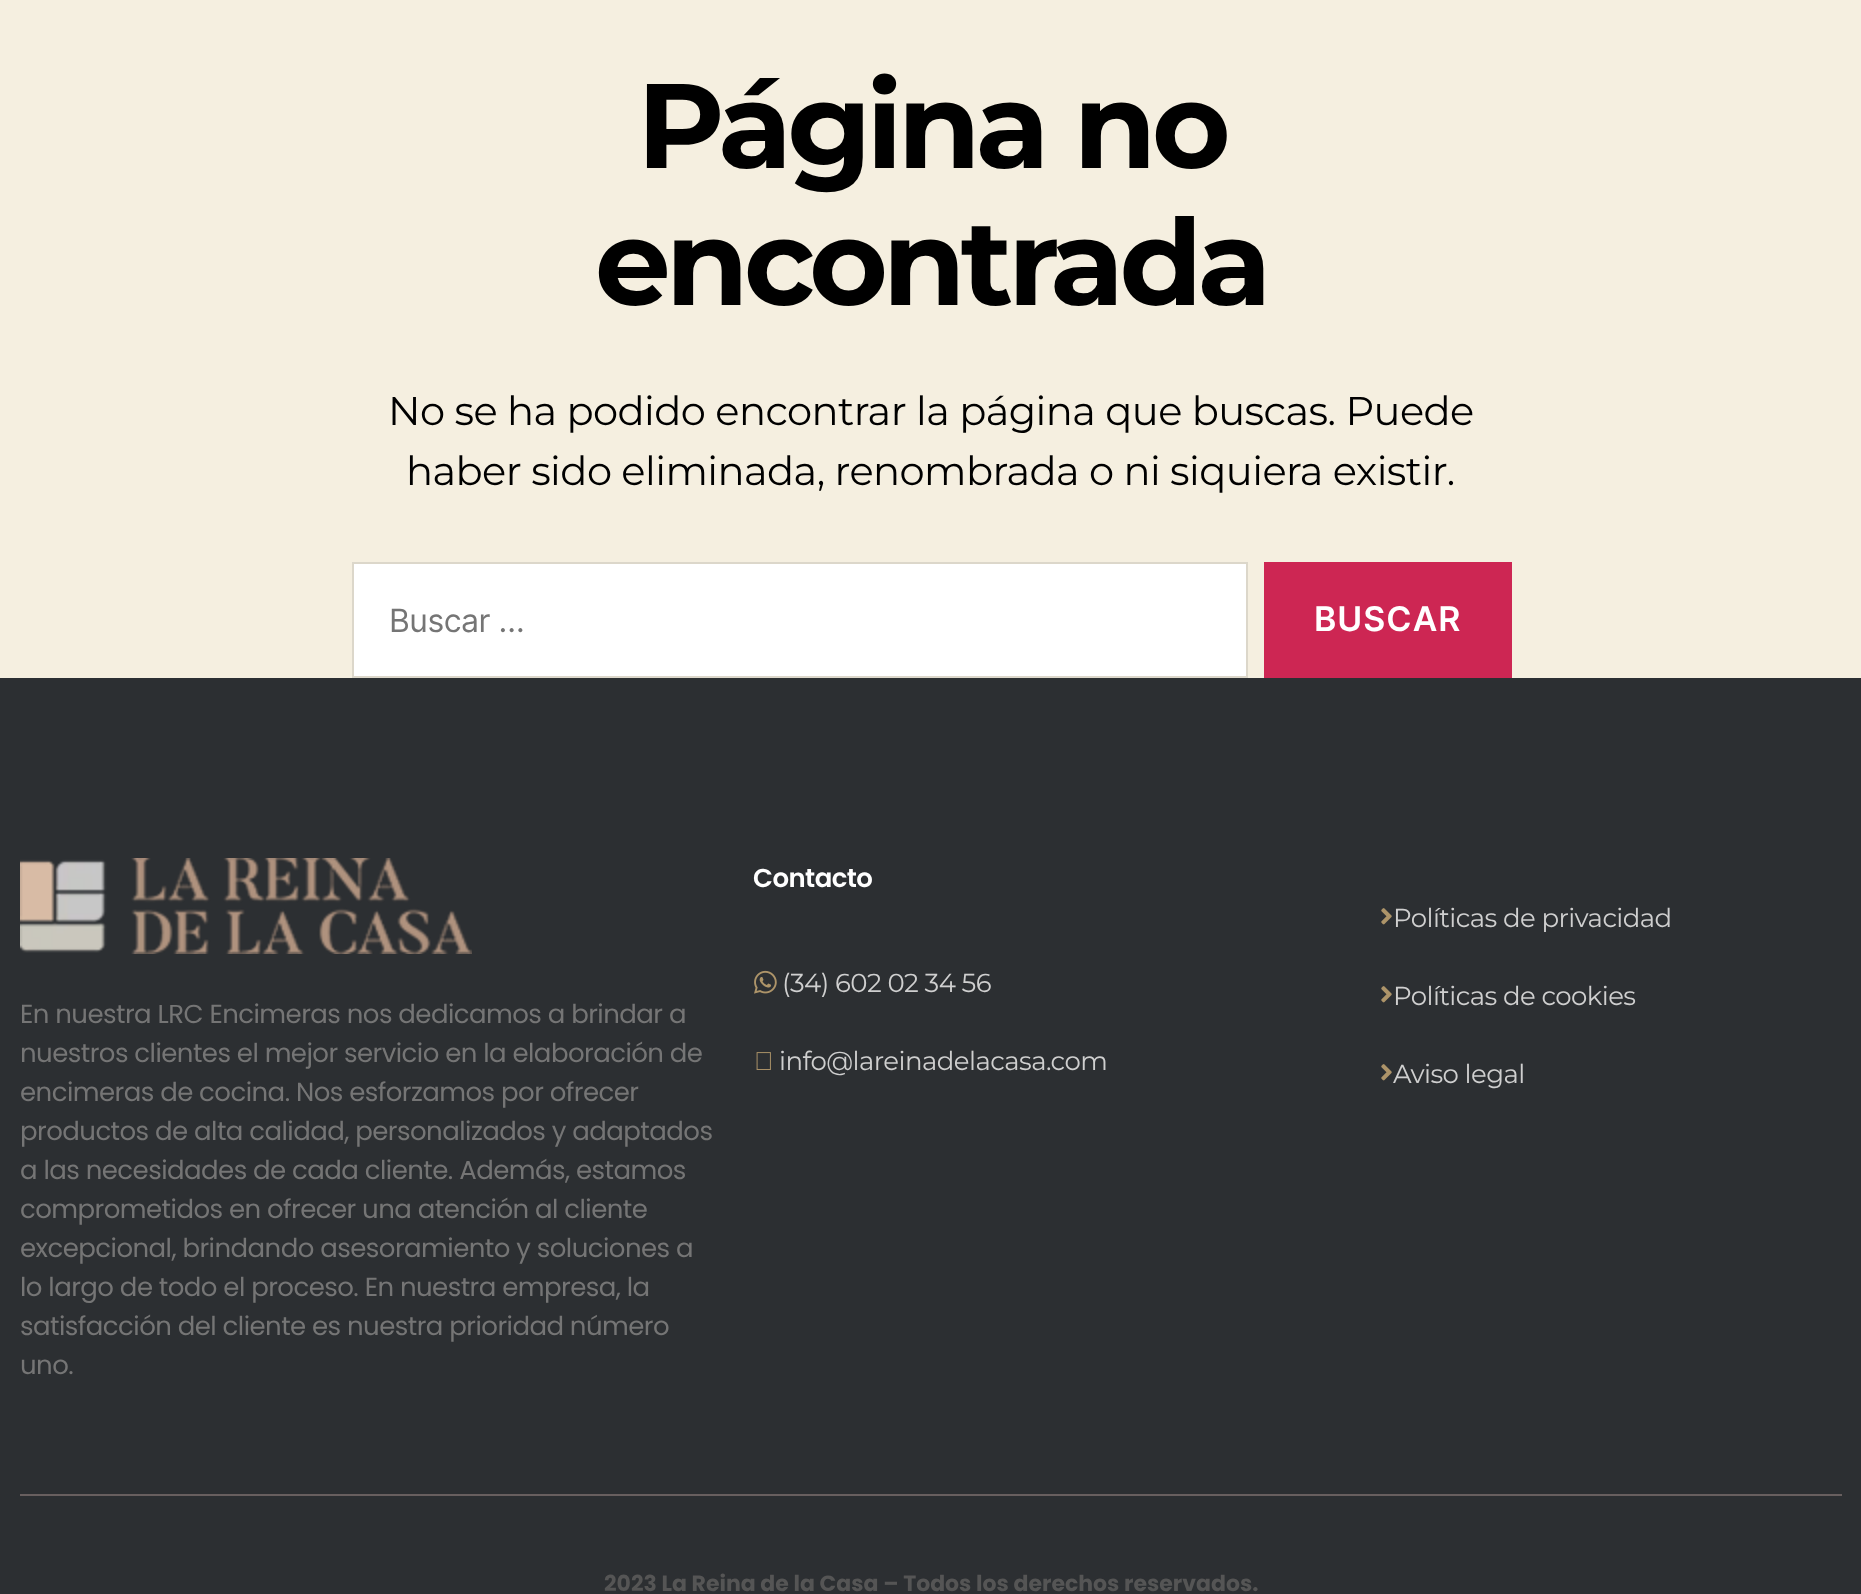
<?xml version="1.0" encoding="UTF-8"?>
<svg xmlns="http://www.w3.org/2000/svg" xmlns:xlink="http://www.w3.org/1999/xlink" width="1861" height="1594">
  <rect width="100%" height="100%" fill="#f5efe0" />
  <rect x="353" y="563" width="894" height="114" fill="#ffffff" stroke="#dcd7ca" stroke-width="2" />
  <rect x="1264" y="562" width="248" height="116" fill="#cd2653" />
  <rect y="678" width="1861" height="916" fill="#2c2f32" />
  <image x="20" y="858" width="452" height="96" xlink:href="image1.png" />
  <image x="754" y="970" width="23" height="24" xlink:href="image2.png" />
  <image x="756" y="1052" width="15" height="18" xlink:href="image3.png" />
  <image x="1381" y="908" width="11" height="17" xlink:href="image4.png" />
  <image x="1381" y="986" width="11" height="17" xlink:href="image4.png" />
  <image x="1381" y="1064" width="11" height="17" xlink:href="image4.png" />
  <rect x="20" y="1494" width="1822" height="2" fill="#685f5f" />
  <text x="637" y="168" style="font-family: Montserrat; font-size: 120px; font-weight: bold; letter-spacing: -5px; fill: #000000">Página no</text>
  <text x="595" y="305" style="font-family: Montserrat; font-size: 120px; font-weight: bold; letter-spacing: -5px; fill: #000000">encontrada</text>
  <text x="388" y="425" style="font-family: Montserrat; font-size: 40px; letter-spacing: -0.55px; fill: #000000">No se ha podido encontrar la página que buscas. Puede</text>
  <text x="406" y="485" style="font-family: Montserrat; font-size: 40px; letter-spacing: -0.55px; fill: #000000">haber sido eliminada, renombrada o ni siquiera existir.</text>
  <text x="389" y="632" style="font-family: Inter; font-size: 32px; letter-spacing: -0.5px; fill: #757575">Buscar …</text>
  <text x="1314" y="631" style="font-family: Inter; font-size: 34px; font-weight: 600; letter-spacing: 1px; fill: #ffffff">BUSCAR</text>
  <text x="20" y="1023" style="font-family: Poppins; font-size: 26px; letter-spacing: -0.55px; fill: #757575">En nuestra LRC Encimeras nos dedicamos a brindar a</text>
  <text x="20" y="1062" style="font-family: Poppins; font-size: 26px; letter-spacing: -0.55px; fill: #757575">nuestros clientes el mejor servicio en la elaboración de</text>
  <text x="20" y="1101" style="font-family: Poppins; font-size: 26px; letter-spacing: -0.55px; fill: #757575">encimeras de cocina. Nos esforzamos por ofrecer</text>
  <text x="20" y="1140" style="font-family: Poppins; font-size: 26px; letter-spacing: -0.55px; fill: #757575">productos de alta calidad, personalizados y adaptados</text>
  <text x="20" y="1179" style="font-family: Poppins; font-size: 26px; letter-spacing: -0.55px; fill: #757575">a las necesidades de cada cliente. Además, estamos</text>
  <text x="20" y="1218" style="font-family: Poppins; font-size: 26px; letter-spacing: -0.55px; fill: #757575">comprometidos en ofrecer una atención al cliente</text>
  <text x="20" y="1257" style="font-family: Poppins; font-size: 26px; letter-spacing: -0.55px; fill: #757575">excepcional, brindando asesoramiento y soluciones a</text>
  <text x="20" y="1296" style="font-family: Poppins; font-size: 26px; letter-spacing: -0.55px; fill: #757575">lo largo de todo el proceso. En nuestra empresa, la</text>
  <text x="20" y="1335" style="font-family: Poppins; font-size: 26px; letter-spacing: -0.55px; fill: #757575">satisfacción del cliente es nuestra prioridad número</text>
  <text x="20" y="1374" style="font-family: Poppins; font-size: 26px; letter-spacing: -0.55px; fill: #757575">uno.</text>
  <text x="753" y="887" style="font-family: Poppins; font-size: 26px; font-weight: 600; letter-spacing: -0.55px; fill: #ffffff">Contacto</text>
  <text x="782" y="992" style="font-family: Montserrat; font-size: 26px; letter-spacing: -0.55px; fill: #cfcfcf">(34) 602 02 34 56</text>
  <text x="779" y="1070" style="font-family: Montserrat; font-size: 26px; letter-spacing: -0.55px; fill: #cfcfcf">info@lareinadelacasa.com</text>
  <text x="1393" y="927" style="font-family: Montserrat; font-size: 26px; letter-spacing: -0.55px; fill: #cfcfcf">Políticas de privacidad</text>
  <text x="1393" y="1005" style="font-family: Montserrat; font-size: 26px; letter-spacing: -0.55px; fill: #cfcfcf">Políticas de cookies</text>
  <text x="1393" y="1083" style="font-family: Montserrat; font-size: 26px; letter-spacing: -0.55px; fill: #cfcfcf">Aviso legal</text>
  <text x="604" y="1591" style="font-family: Poppins; font-size: 22px; font-weight: bold; fill: #555555">2023 La Reina de la Casa – Todos los derechos reservados.</text>
</svg>
